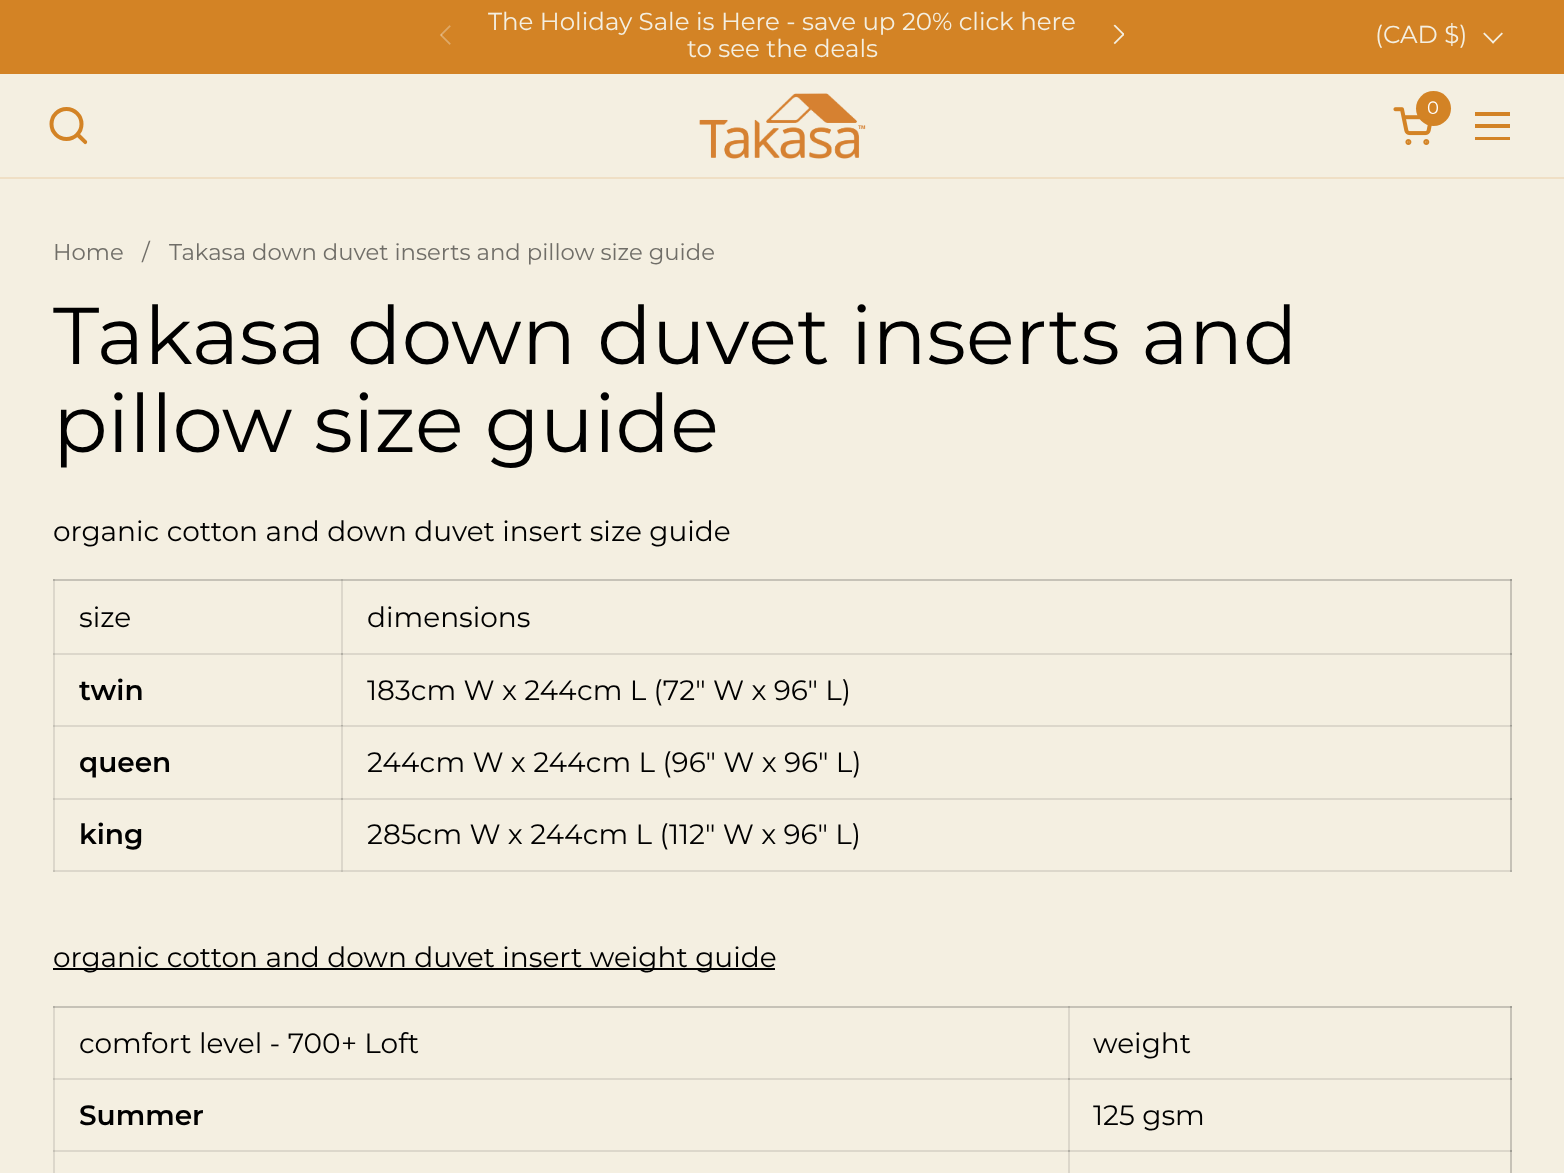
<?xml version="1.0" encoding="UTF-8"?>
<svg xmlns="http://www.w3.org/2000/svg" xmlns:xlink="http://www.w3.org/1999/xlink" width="1564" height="1173">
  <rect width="100%" height="100%" fill="#f4efe1" />
  <rect x="1068" y="1006" width="2" height="167" fill="#dcd7cb" />
  <rect x="53" y="1078" width="1459" height="2" fill="#dcd7cb" />
  <rect x="1068" y="1078" width="2" height="2" fill="#b2afa5" />
  <rect x="53" y="1150" width="1459" height="2" fill="#dcd7cb" />
  <rect x="1068" y="1150" width="2" height="2" fill="#b2afa5" />
  <rect x="53" y="1006" width="2" height="167" fill="#dcd7cb" />
  <rect x="53" y="1078" width="2" height="2" fill="#c6c2b7" />
  <rect x="53" y="1150" width="2" height="2" fill="#c6c2b7" />
  <rect x="1510" y="1006" width="2" height="167" fill="#c6c2b7" />
  <rect x="1510" y="1078" width="2" height="2" fill="#a09e95" />
  <rect x="1510" y="1150" width="2" height="2" fill="#a09e95" />
  <rect x="341" y="579" width="2" height="293" fill="#dcd7cb" />
  <rect x="53" y="653" width="1459" height="2" fill="#dcd7cb" />
  <rect x="341" y="653" width="2" height="2" fill="#b2afa5" />
  <rect x="53" y="725" width="1459" height="2" fill="#dcd7cb" />
  <rect x="341" y="726" width="2" height="1" fill="#c6c2b7" />
  <rect x="341" y="725" width="2" height="1" fill="#b2afa5" />
  <rect x="53" y="798" width="1459" height="2" fill="#dcd7cb" />
  <rect x="341" y="798" width="2" height="2" fill="#b2afa5" />
  <rect x="53" y="579" width="2" height="293" fill="#dcd7cb" />
  <rect x="53" y="653" width="2" height="2" fill="#c6c2b7" />
  <rect x="53" y="725" width="2" height="2" fill="#c6c2b7" />
  <rect x="53" y="798" width="2" height="2" fill="#c6c2b7" />
  <rect x="53" y="870" width="1459" height="2" fill="#dcd7cb" />
  <rect x="341" y="870" width="2" height="2" fill="#c6c2b7" />
  <rect x="53" y="870" width="2" height="2" fill="#c6c2b7" />
  <rect x="1510" y="579" width="2" height="293" fill="#c6c2b7" />
  <rect x="1510" y="653" width="2" height="2" fill="#a09e95" />
  <rect x="1510" y="726" width="2" height="1" fill="#b2afa5" />
  <rect x="1510" y="725" width="2" height="1" fill="#a09e95" />
  <rect x="1510" y="798" width="2" height="2" fill="#a09e95" />
  <rect x="1510" y="870" width="2" height="2" fill="#b2afa5" />
  <rect width="1564" height="74" fill="#d38325" />
  <image x="440" y="25" width="11" height="20" xlink:href="image1.png" />
  <image x="1113" y="24" width="11" height="21" xlink:href="image2.png" />
  <image x="1483" y="32" width="20" height="12" xlink:href="image3.png" />
  <circle cx="66.5" cy="124" r="15" fill="none" stroke="#d38325" stroke-width="4" />
  <path d="M 79.5 133.5 l -1.5 -1 l -2.5 2.5 l 1 1.5 z m 4.5 10 c 1.5 2 4.5 -1 2.5 -3 z m -7.5 -7 l 7.5 7 l 2.5 -3 l -7 -7 z" fill="#d38325" />
  <image x="699" y="93" width="167" height="66" xlink:href="image4.png" />
  <circle cx="1433.5" cy="108.5" r="17.5" fill="#d38325" />
  <rect x="1475" y="112" width="35" height="4" fill="#d38325" />
  <rect x="1475" y="124" width="35" height="4" fill="#d38325" />
  <rect x="1475" y="137" width="35" height="3" fill="#d38325" />
  <rect y="177" width="1564" height="2" fill="#efdfc5" />
  <rect x="53" y="579" width="1459" height="2" fill="#c6c2b7" />
  <rect x="341" y="579" width="2" height="2" fill="#b2afa5" />
  <rect x="53" y="579" width="2" height="2" fill="#b2afa5" />
  <rect x="1510" y="579" width="2" height="2" fill="#a09e95" />
  <rect x="53" y="968" width="722" height="2" fill="#000000" />
  <rect x="53" y="1006" width="1459" height="2" fill="#c6c2b7" />
  <rect x="1068" y="1006" width="2" height="2" fill="#b2afa5" />
  <rect x="53" y="1006" width="2" height="2" fill="#b2afa5" />
  <rect x="1510" y="1006" width="2" height="2" fill="#a09e95" />
  <text x="488" y="30" style="font-family: Montserrat; font-size: 24.5px; fill: #f4efe1">The Holiday Sale is Here - save up 20% click here</text>
  <text x="687" y="57" style="font-family: Montserrat; font-size: 24.5px; fill: #f4efe1">to see the deals</text>
  <text x="1375" y="43" style="font-family: Montserrat; font-size: 24.5px; fill: #f4efe1">(CAD $)</text>
  <text x="1427" y="114" style="font-family: Montserrat; font-size: 18px; fill: #ffffff">0</text>
  <image x="1393" y="107" width="39" height="38" xlink:href="image5.png" />
  <text x="53" y="260" style="font-family: Montserrat; font-size: 22.75px; fill: #706e68">Home</text>
  <text x="142" y="260" style="font-family: Montserrat; font-size: 22.75px; fill: #706e68">/</text>
  <text x="169" y="260" style="font-family: Montserrat; font-size: 22.75px; fill: #706e68">Takasa down duvet inserts and pillow size guide</text>
  <text x="53" y="364" style="font-family: Montserrat; font-size: 80.5px; fill: #000000">Takasa down duvet inserts and</text>
  <text x="53" y="452" style="font-family: Montserrat; font-size: 80.5px; fill: #000000">pillow size guide</text>
  <text x="53" y="541" style="font-family: Montserrat; font-size: 28px; fill: #000000">organic cotton and down duvet insert size guide</text>
  <text x="79" y="627" style="font-family: Montserrat; font-size: 28px; fill: #000000">size</text>
  <text x="367" y="627" style="font-family: Montserrat; font-size: 28px; fill: #000000">dimensions</text>
  <text x="79" y="700" style="font-family: Montserrat; font-size: 28px; font-weight: 600; fill: #000000">twin</text>
  <text x="367" y="700" style="font-family: Montserrat; font-size: 28px; fill: #000000">183cm W x 244cm L (72" W x 96" L)</text>
  <text x="79" y="772" style="font-family: Montserrat; font-size: 28px; font-weight: 600; fill: #000000">queen</text>
  <text x="367" y="772" style="font-family: Montserrat; font-size: 28px; fill: #000000">244cm W x 244cm L (96" W x 96" L)</text>
  <text x="79" y="844" style="font-family: Montserrat; font-size: 28px; font-weight: 600; fill: #000000">king</text>
  <text x="367" y="844" style="font-family: Montserrat; font-size: 28px; fill: #000000">285cm W x 244cm L (112" W x 96" L)</text>
  <text x="53" y="967" style="font-family: Montserrat; font-size: 28px; fill: #000000">organic cotton and down duvet insert weight guide</text>
  <text x="79" y="1053" style="font-family: Montserrat; font-size: 28px; fill: #000000">comfort level - 700+ Loft</text>
  <text x="1093" y="1053" style="font-family: Montserrat; font-size: 28px; fill: #000000">weight</text>
  <text x="79" y="1125" style="font-family: Montserrat; font-size: 28px; font-weight: 600; fill: #000000">Summer</text>
  <text x="1093" y="1125" style="font-family: Montserrat; font-size: 28px; fill: #000000">125 gsm</text>
</svg>
